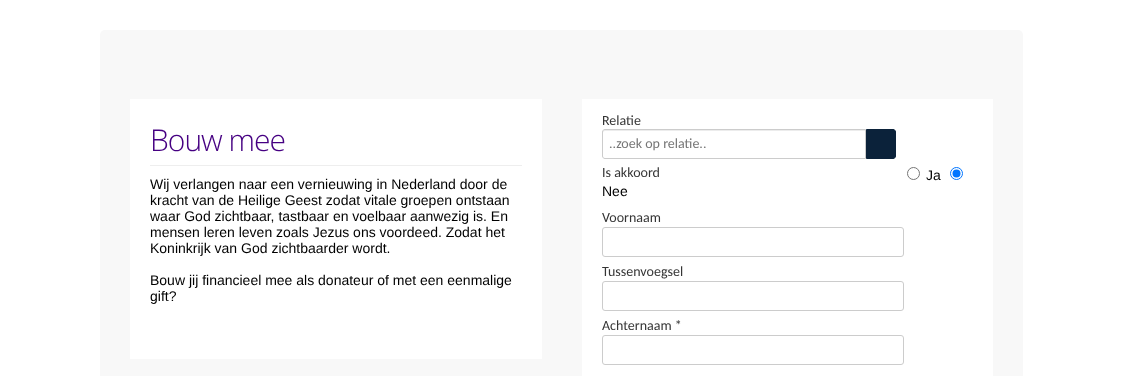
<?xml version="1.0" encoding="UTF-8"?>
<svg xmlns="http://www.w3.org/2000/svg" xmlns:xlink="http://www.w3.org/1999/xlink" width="1123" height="376">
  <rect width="100%" height="100%" fill="#ffffff" />
  <rect x="100" y="30" width="923" height="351" rx="5" fill="#f8f8f8" />
  <rect x="130" y="99" width="412" height="260" fill="#ffffff" />
  <rect x="150" y="165" width="372" height="1" fill="#eeeeee" />
  <rect x="582" y="99" width="411" height="277" fill="#ffffff" />
  <path d="M 605 131 h 260 v -1 h -260 c -2 0 -2 2 -2 3 c 0 -1 1 -2 2 -2 z" fill="#ececec" />
  <path d="M 605 129.5 h 260.5 v 29 h -260.5 c -1.5 0 -2.5 -1 -2.5 -2.5 v -24 c 0 -1.5 1 -2.5 2.5 -2.5 z" fill="none" stroke="#cccccc" />
  <path d="M 866.5 129.5 h 26.5 c 1.5 0 2.5 1 2.5 2.5 v 24 c 0 1.5 -1 2.5 -2.5 2.5 h -26.5 z" fill="#0b223a" stroke="#0b223a" />
  <circle cx="913.5" cy="173.5" r="6" fill="none" stroke="#767676" />
  <circle cx="956.5" cy="173.5" r="6" fill="none" stroke="#0075ff" />
  <circle cx="956.5" cy="173.5" r="4" fill="#0075ff" />
  <rect x="602.5" y="227.5" width="301" height="29" rx="2.5" fill="none" stroke="#cccccc" />
  <rect x="602.5" y="281.5" width="301" height="29" rx="2.5" fill="none" stroke="#cccccc" />
  <rect x="602.5" y="335.5" width="301" height="29" rx="2.5" fill="none" stroke="#cccccc" />
  <text x="150" y="151" style="font-family: Open Sans; font-size: 30px; font-weight: 300; letter-spacing: -1px; fill: #460082">Bouw mee</text>
  <text x="150" y="189" style="font-family: Liberation Sans; font-size: 14px; fill: #000000">Wij verlangen naar een vernieuwing in Nederland door de</text>
  <text x="150" y="205" style="font-family: Liberation Sans; font-size: 14px; fill: #000000">kracht van de Heilige Geest zodat vitale groepen ontstaan</text>
  <text x="150" y="221" style="font-family: Liberation Sans; font-size: 14px; fill: #000000">waar God zichtbaar, tastbaar en voelbaar aanwezig is. En</text>
  <text x="150" y="237" style="font-family: Liberation Sans; font-size: 14px; fill: #000000">mensen leren leven zoals Jezus ons voordeed. Zodat het</text>
  <text x="150" y="253" style="font-family: Liberation Sans; font-size: 14px; fill: #000000">Koninkrijk van God zichtbaarder wordt.</text>
  <text x="150" y="285" style="font-family: Liberation Sans; font-size: 14px; fill: #000000">Bouw jij financieel mee als donateur of met een eenmalige</text>
  <text x="150" y="301" style="font-family: Liberation Sans; font-size: 14px; fill: #000000">gift?</text>
  <text x="602" y="125" style="font-family: Carlito; font-size: 14px; fill: #353535">Relatie</text>
  <text x="609" y="148" style="font-family: Carlito; font-size: 14px; fill: #757575">..zoek op relatie..</text>
  <text x="602" y="177" style="font-family: Carlito; font-size: 14px; fill: #353535">Is akkoord</text>
  <text x="926" y="180" style="font-family: Liberation Sans; font-size: 14px; fill: #000000">Ja</text>
  <text x="602" y="196" style="font-family: Liberation Sans; font-size: 14px; fill: #000000">Nee</text>
  <text x="602" y="222" style="font-family: Carlito; font-size: 14px; fill: #353535">Voornaam</text>
  <text x="602" y="276" style="font-family: Carlito; font-size: 14px; fill: #353535">Tussenvoegsel</text>
  <text x="602" y="330" style="font-family: Carlito; font-size: 14px; fill: #353535">Achternaam *</text>
</svg>
